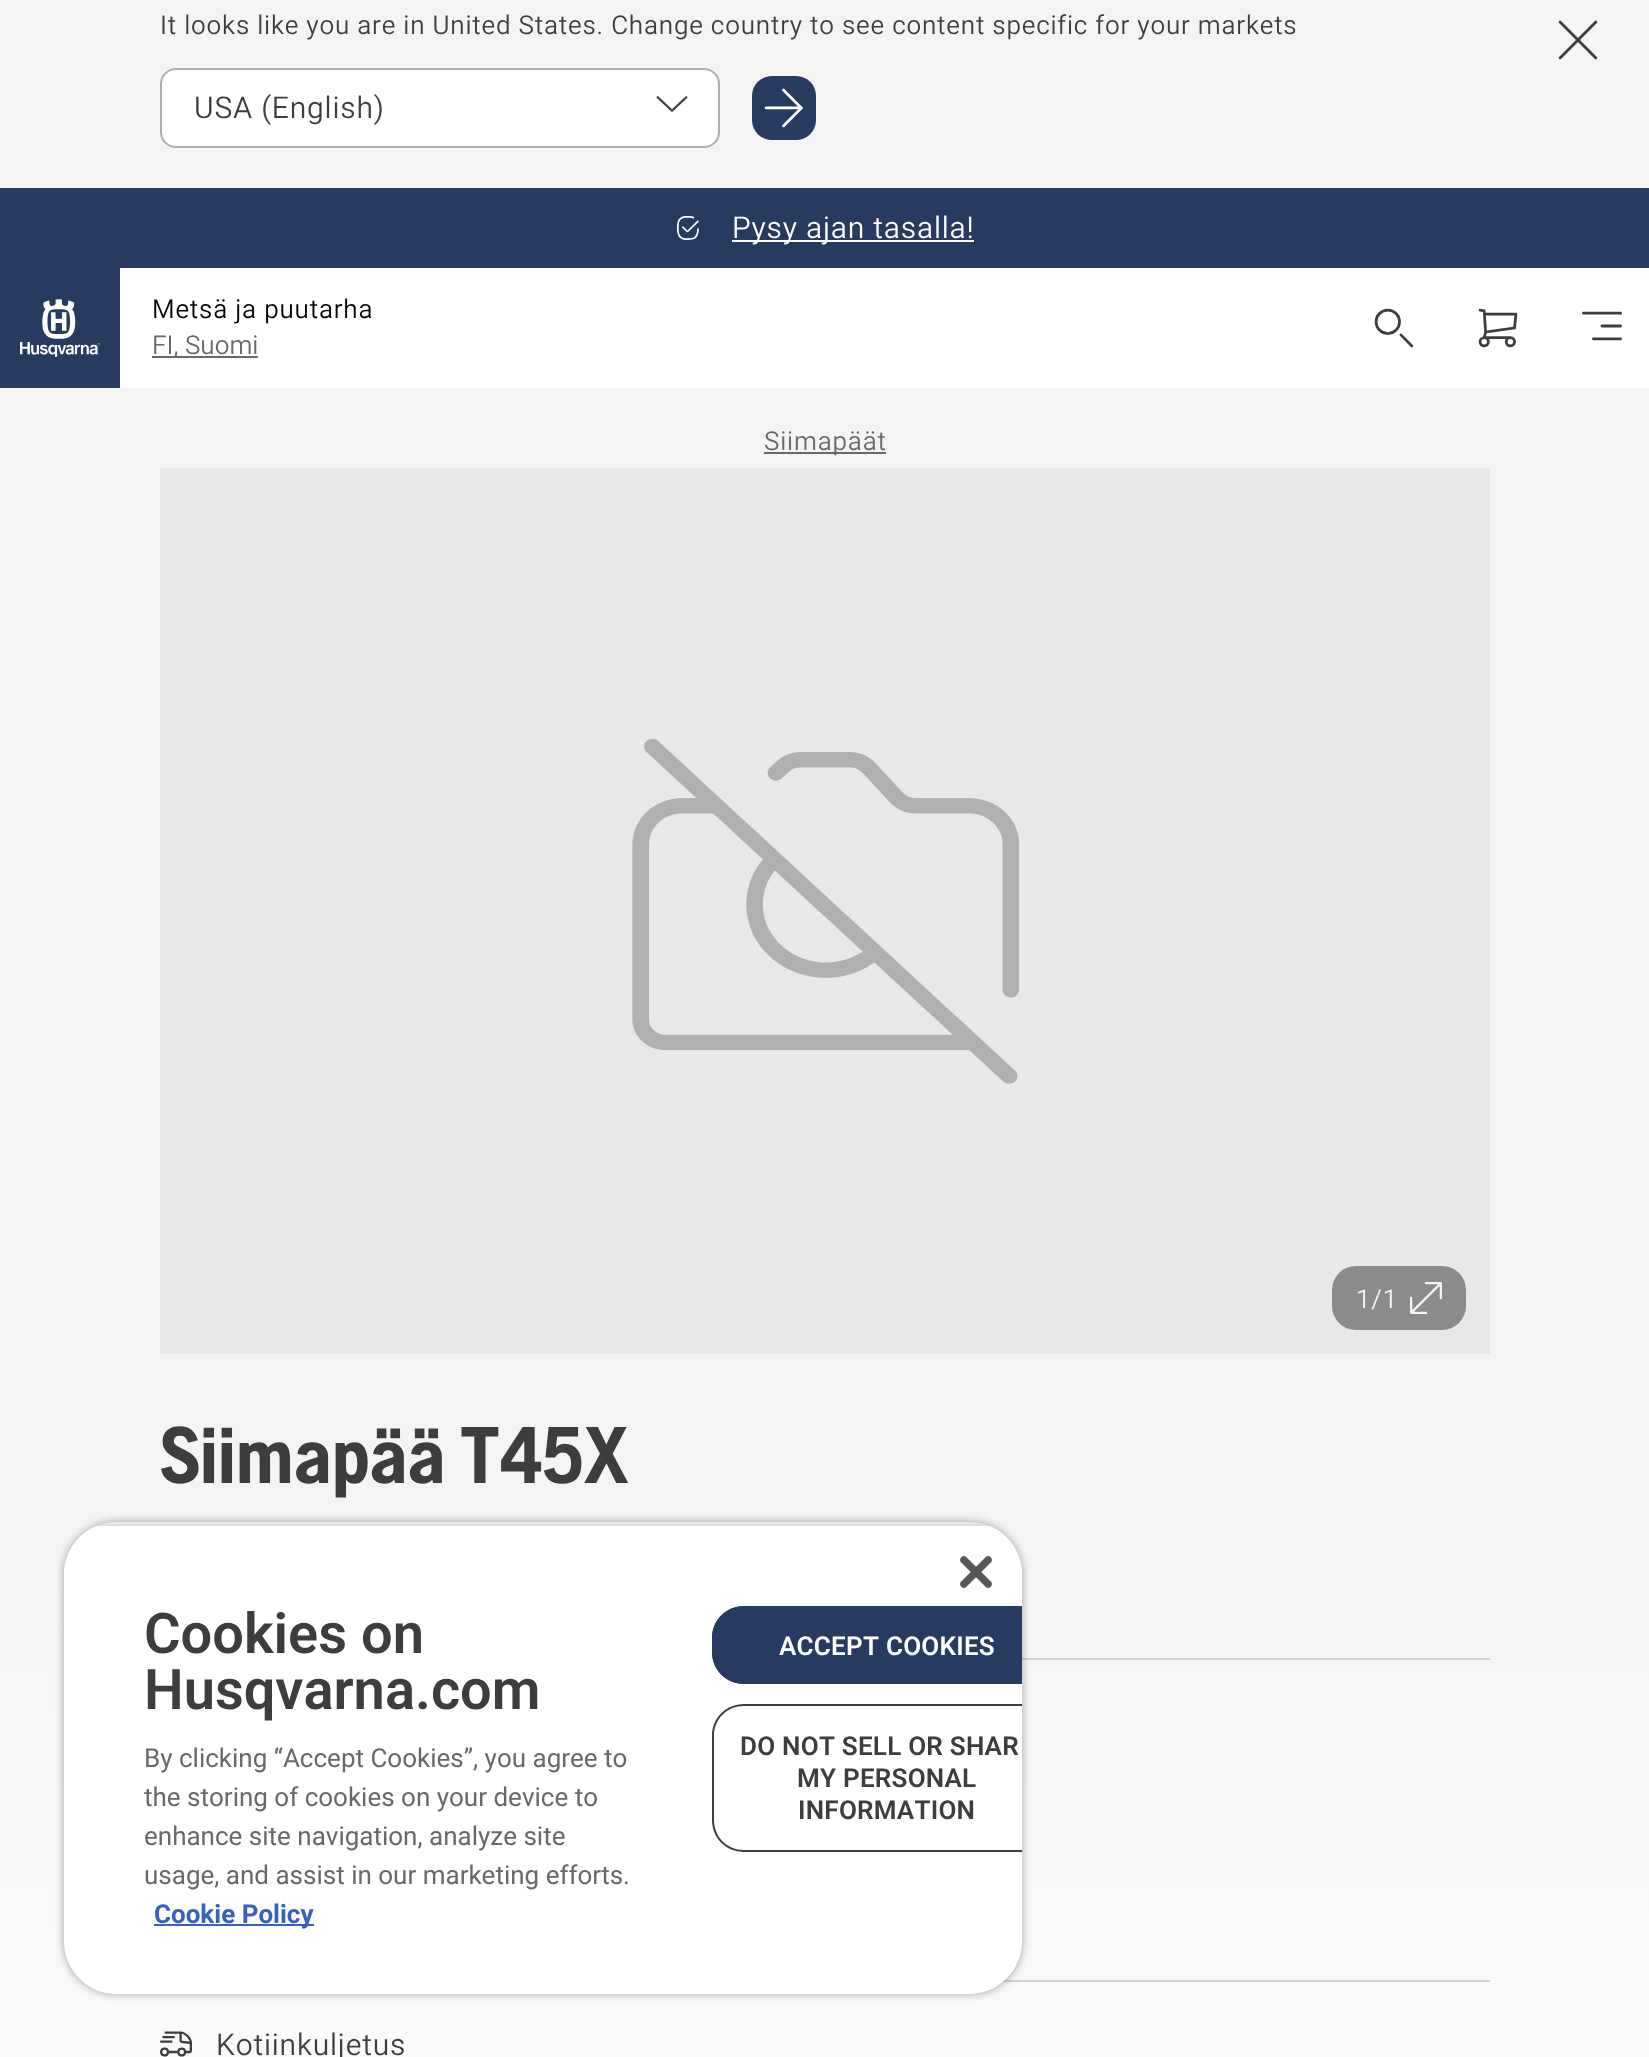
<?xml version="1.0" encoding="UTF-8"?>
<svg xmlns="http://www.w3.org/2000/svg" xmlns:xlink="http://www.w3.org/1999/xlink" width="1649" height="2057">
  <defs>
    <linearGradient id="g1" gradientUnits="userSpaceOnUse" x1="825" y1="388" x2="825" y2="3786"><stop offset="0" stop-color="#f4f4f3" /><stop offset="0.32" stop-color="#f4f4f3" /><stop offset="0.65" stop-color="#ffffff" /></linearGradient>
    <clipPath id="clip1"><path d="M 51 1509 h 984 v 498 h -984 z m 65 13 h 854 c 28.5 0 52 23.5 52 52 v 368 c 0 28.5 -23.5 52 -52 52 h -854 c -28.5 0 -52 -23.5 -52 -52 v -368 c 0 -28.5 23.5 -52 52 -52 z" clip-rule="evenodd" /></clipPath>
    <clipPath id="clip2"><rect x="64" y="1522" width="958" height="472" rx="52" /></clipPath>
    <clipPath id="clip3"><rect x="64" y="1522" width="958" height="472" rx="52" /></clipPath>
  </defs>
  <rect width="100%" height="100%" fill="#ffffff" />
  <rect width="1649" height="188" fill="#f4f4f3" />
  <rect x="161" y="69" width="558" height="78" rx="15" fill="#ffffff" stroke="#b0b0af" stroke-width="2" />
  <image x="656" y="96" width="32" height="16" xlink:href="image1.png" />
  <rect x="752" y="76" width="64" height="64" rx="20" fill="#273a60" />
  <image x="764" y="88" width="40" height="40" xlink:href="image2.png" />
  <image x="1558" y="20" width="40" height="40" xlink:href="image3.png" />
  <rect y="188" width="1649" height="80" fill="#273a60" />
  <image x="676" y="216" width="23" height="24" xlink:href="image4.png" />
  <rect x="732" y="240" width="242" height="2" fill="#ffffff" />
  <rect y="268" width="120" height="120" fill="#273a60" />
  <image x="20" y="299" width="80" height="58" xlink:href="image5.png" />
  <rect x="152" y="356" width="106" height="2" fill="#686867" />
  <image x="1374" y="308" width="40" height="40" xlink:href="image6.png" />
  <image x="1478" y="308" width="40" height="40" xlink:href="image7.png" />
  <image x="1582" y="311" width="40" height="30" xlink:href="image8.png" />
  <rect y="388" width="1649" height="1669" fill="url(#g1)" />
  <rect x="764" y="452" width="122" height="2" fill="#686867" />
  <rect x="160" y="468" width="1330" height="886" fill="#e8e8e8" />
  <image x="632" y="739" width="388" height="345" xlink:href="image9.png" />
  <rect x="1332" y="1266" width="134" height="64" rx="24" fill="#8b8b8b" />
  <image x="1410" y="1282" width="32" height="32" xlink:href="image10.png" />
  <rect x="1022" y="1658" width="468" height="2" fill="#d2d2d1" />
  <rect x="1003" y="1980" width="487" height="2" fill="#d2d2d1" />
  <image x="160" y="2031" width="32" height="26" xlink:href="image11.png" />
  <g clip-path="url(#clip1)">
    <rect x="64" y="1522" width="958" height="472" rx="52" fill="#000000" fill-opacity="0.35" filter="blur(4px)" />
  </g>
  <g clip-path="url(#clip2)">
    <rect x="64" y="1526" width="958" height="468" fill="#000000" fill-opacity="0.2" filter="blur(4px)" />
  </g>
  <g clip-path="url(#clip3)">
    <path d="M 64 1526 h 958 v 416 c 0 28.5 -23.5 52 -52 52 h -854 c -28.5 0 -52 -23.5 -52 -52 z" fill="#ffffff" />
  </g>
  <image x="960" y="1556" width="32" height="32" xlink:href="image12.png" />
  <rect x="154" y="1924" width="160" height="2" fill="#3860be" />
  <path d="M 744 1606 h 278 v 78 h -278 c -17.5 0 -32 -14.5 -32 -32 v -14 c 0 -17.5 14.5 -32 32 -32 z" fill="#273a60" />
  <path d="M 744 1606 c -18 0 -32 14 -32 32 v 14 c 0 18 14 32 32 32 h 278 v -2 h -278 c -17 0 -30 -13 -30 -30 v -14 c 0 -17 13 -30 30 -30 h 278 v -2 z" fill="#273a60" />
  <path d="M 744 1704 c -18 0 -32 14 -32 32 v 84 c 0 18 14 32 32 32 h 278 v -2 h -278 c -17 0 -30 -13 -30 -30 v -84 c 0 -17 13 -30 30 -30 h 278 v -2 z" fill="#3d3d3c" />
  <text x="160" y="34" style="font-family: Roboto; font-size: 26px; font-weight: 300; letter-spacing: 0.8px; fill: #3d3d3c">It looks like you are in United States. Change country to see content specific for your markets</text>
  <text x="194" y="118" style="font-family: Roboto; font-size: 30px; font-weight: 300; letter-spacing: 0.8px; fill: #3d3d3c">USA (English)</text>
  <text x="732" y="238" style="font-family: Roboto; font-size: 30px; font-weight: 300; letter-spacing: 0.8px; fill: #ffffff">Pysy ajan tasalla!</text>
  <text x="152" y="318" style="font-family: Roboto; font-size: 26px; font-weight: 300; letter-spacing: 0.8px; fill: #000000">Metsä ja puutarha</text>
  <text x="152" y="354" style="font-family: Roboto; font-size: 26px; font-weight: 300; fill: #686867">FI, Suomi</text>
  <text x="764" y="450" style="font-family: Roboto; font-size: 26px; font-weight: 300; letter-spacing: 0.8px; fill: #686867">Siimapäät</text>
  <text x="1356" y="1308" style="font-family: Roboto; font-size: 26px; font-weight: 300; letter-spacing: 0.8px; fill: #f4f4f3">1/1</text>
  <text x="160" y="1483" style="font-family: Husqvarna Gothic; font-size: 80px; font-weight: bold; letter-spacing: -0.75px; fill: #3d3d3c">Siimapää T45X</text>
  <text x="216" y="2055" style="font-family: Roboto; font-size: 30px; font-weight: 300; letter-spacing: 0.8px; fill: #3d3d3c">Kotiinkuljetus</text>
  <text x="144" y="1653" style="font-family: Roboto; font-size: 56px; font-weight: 600; fill: #3d3d3c">Cookies on</text>
  <text x="144" y="1709" style="font-family: Roboto; font-size: 56px; font-weight: 600; fill: #3d3d3c">Husqvarna.com</text>
  <text x="144" y="1767" style="font-family: Roboto; font-size: 26px; fill: #686867">By clicking “Accept Cookies”, you agree to</text>
  <text x="144" y="1806" style="font-family: Roboto; font-size: 26px; fill: #686867">the storing of cookies on your device to</text>
  <text x="144" y="1845" style="font-family: Roboto; font-size: 26px; fill: #686867">enhance site navigation, analyze site</text>
  <text x="144" y="1884" style="font-family: Roboto; font-size: 26px; fill: #686867">usage, and assist in our marketing efforts.</text>
  <text x="154" y="1923" style="font-family: Roboto; font-size: 26px; font-weight: bold; fill: #3860be">Cookie Policy</text>
  <text x="779" y="1655" style="font-family: Roboto; font-size: 26px; font-weight: 600; letter-spacing: 0.25px; fill: #ffffff">ACCEPT COOKIES</text>
  <text x="740" y="1755" style="font-family: Roboto; font-size: 26px; font-weight: 600; letter-spacing: 0.25px; fill: #3d3d3c">DO NOT SELL OR SHAR</text>
  <text x="797" y="1787" style="font-family: Roboto; font-size: 26px; font-weight: 600; letter-spacing: 0.25px; fill: #3d3d3c">MY PERSONAL</text>
  <text x="798" y="1819" style="font-family: Roboto; font-size: 26px; font-weight: 600; letter-spacing: 0.25px; fill: #3d3d3c">INFORMATION</text>
</svg>
